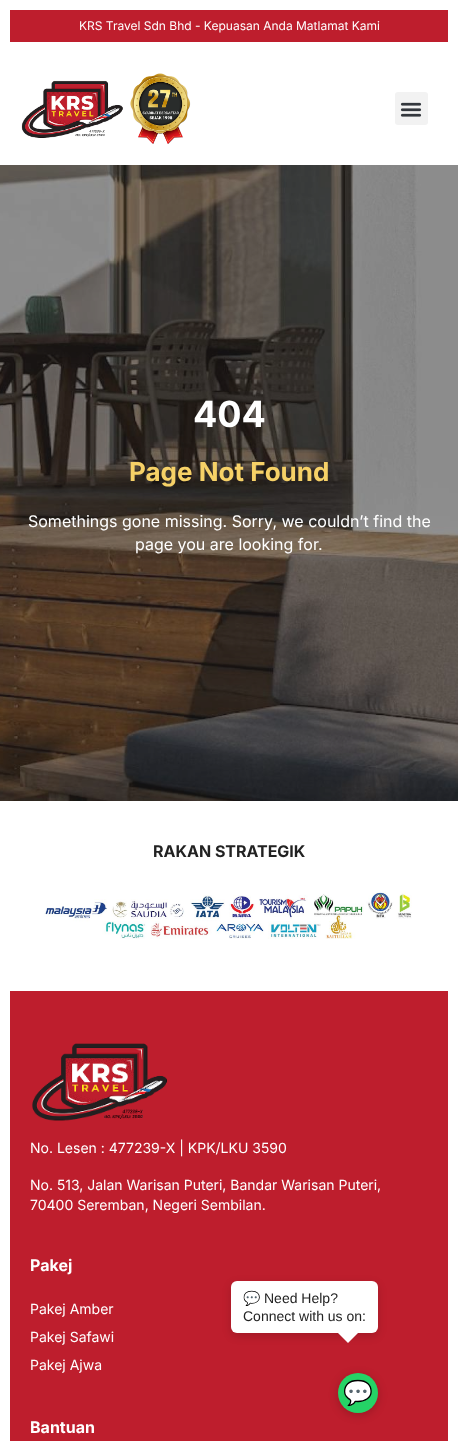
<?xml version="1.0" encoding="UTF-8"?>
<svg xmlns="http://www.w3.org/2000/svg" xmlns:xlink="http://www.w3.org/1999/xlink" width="458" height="1441">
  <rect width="100%" height="100%" fill="#ffffff" />
  <rect x="10" y="10" width="438" height="32" fill="#be1e2d" />
  <image x="21" y="80" width="102" height="58" xlink:href="image1.png" />
  <image x="130" y="73" width="61" height="71" xlink:href="image2.png" />
  <rect x="395" y="92" width="33" height="33" rx="3" fill="#f2f2f2" />
  <image x="400" y="102" width="22" height="15" xlink:href="image3.png" />
  <image x="0" y="165" width="458" height="636" xlink:href="image4.png" />
  <image x="44" y="891" width="368" height="48" xlink:href="image5.png" />
  <rect x="10" y="991" width="438" height="450" fill="#be1e2d" />
  <image x="32" y="1043" width="135" height="78" xlink:href="image6.png" />
  <rect x="231" y="1284" width="147" height="52" rx="6" fill="#000000" fill-opacity="0.15" filter="blur(4px)" />
  <rect x="231" y="1281" width="147" height="52" rx="6" fill="#ffffff" />
  <path d="M 338 1333 h 20 l -10 10 z" fill="#ffffff" />
  <rect x="338" y="1375" width="40" height="40" rx="20" fill="#000000" fill-opacity="0.2" filter="blur(5px)" />
  <circle cx="358" cy="1393" r="20" fill="#25d366" />
  <text x="79" y="30" style="font-family: Inter; font-size: 12px; fill: #ffffff">KRS Travel Sdn Bhd - Kepuasan Anda Matlamat Kami</text>
  <text x="193" y="427" style="font-family: Inter; font-size: 36px; font-weight: bold; fill: #ffffff">404</text>
  <text x="129" y="481" style="font-family: Inter; font-size: 26px; font-weight: bold; fill: #f6d167">Page Not Found</text>
  <text x="28" y="527" style="font-family: Inter; font-size: 16px; fill: #ffffff">Somethings gone missing. Sorry, we couldn’t find the</text>
  <text x="135" y="550" style="font-family: Inter; font-size: 16px; fill: #ffffff">page you are looking for.</text>
  <text x="153" y="857" style="font-family: Inter; font-size: 16px; font-weight: bold; fill: #222222">RAKAN STRATEGIK</text>
  <text x="30" y="1153" style="font-family: Inter; font-size: 14px; fill: #ffffff">No. Lesen : 477239-X | KPK/LKU 3590</text>
  <text x="30" y="1190" style="font-family: Inter; font-size: 14px; fill: #ffffff">No. 513, Jalan Warisan Puteri, Bandar Warisan Puteri,</text>
  <text x="30" y="1210" style="font-family: Inter; font-size: 14px; fill: #ffffff">70400 Seremban, Negeri Sembilan.</text>
  <text x="30" y="1271" style="font-family: Inter; font-size: 16px; font-weight: bold; fill: #ffffff">Pakej</text>
  <text x="30" y="1314" style="font-family: Inter; font-size: 14px; fill: #ffffff">Pakej Amber</text>
  <text x="30" y="1342" style="font-family: Inter; font-size: 14px; fill: #ffffff">Pakej Safawi</text>
  <text x="30" y="1370" style="font-family: Inter; font-size: 14px; fill: #ffffff">Pakej Ajwa</text>
  <text x="30" y="1433" style="font-family: Inter; font-size: 16px; font-weight: bold; fill: #ffffff">Bantuan</text>
  <text x="243" y="1303" style="font-family: Noto Color Emoji; font-size: 14px; fill: #222222">💬</text>
  <text x="264" y="1303" style="font-family: Liberation Sans; font-size: 14px; fill: #222222">Need Help?</text>
  <text x="243" y="1321" style="font-family: Liberation Sans; font-size: 14px; fill: #222222">Connect with us on:</text>
  <text x="343" y="1401" style="font-family: Noto Color Emoji; font-size: 24px; fill: #ffffff">💬</text>
</svg>
